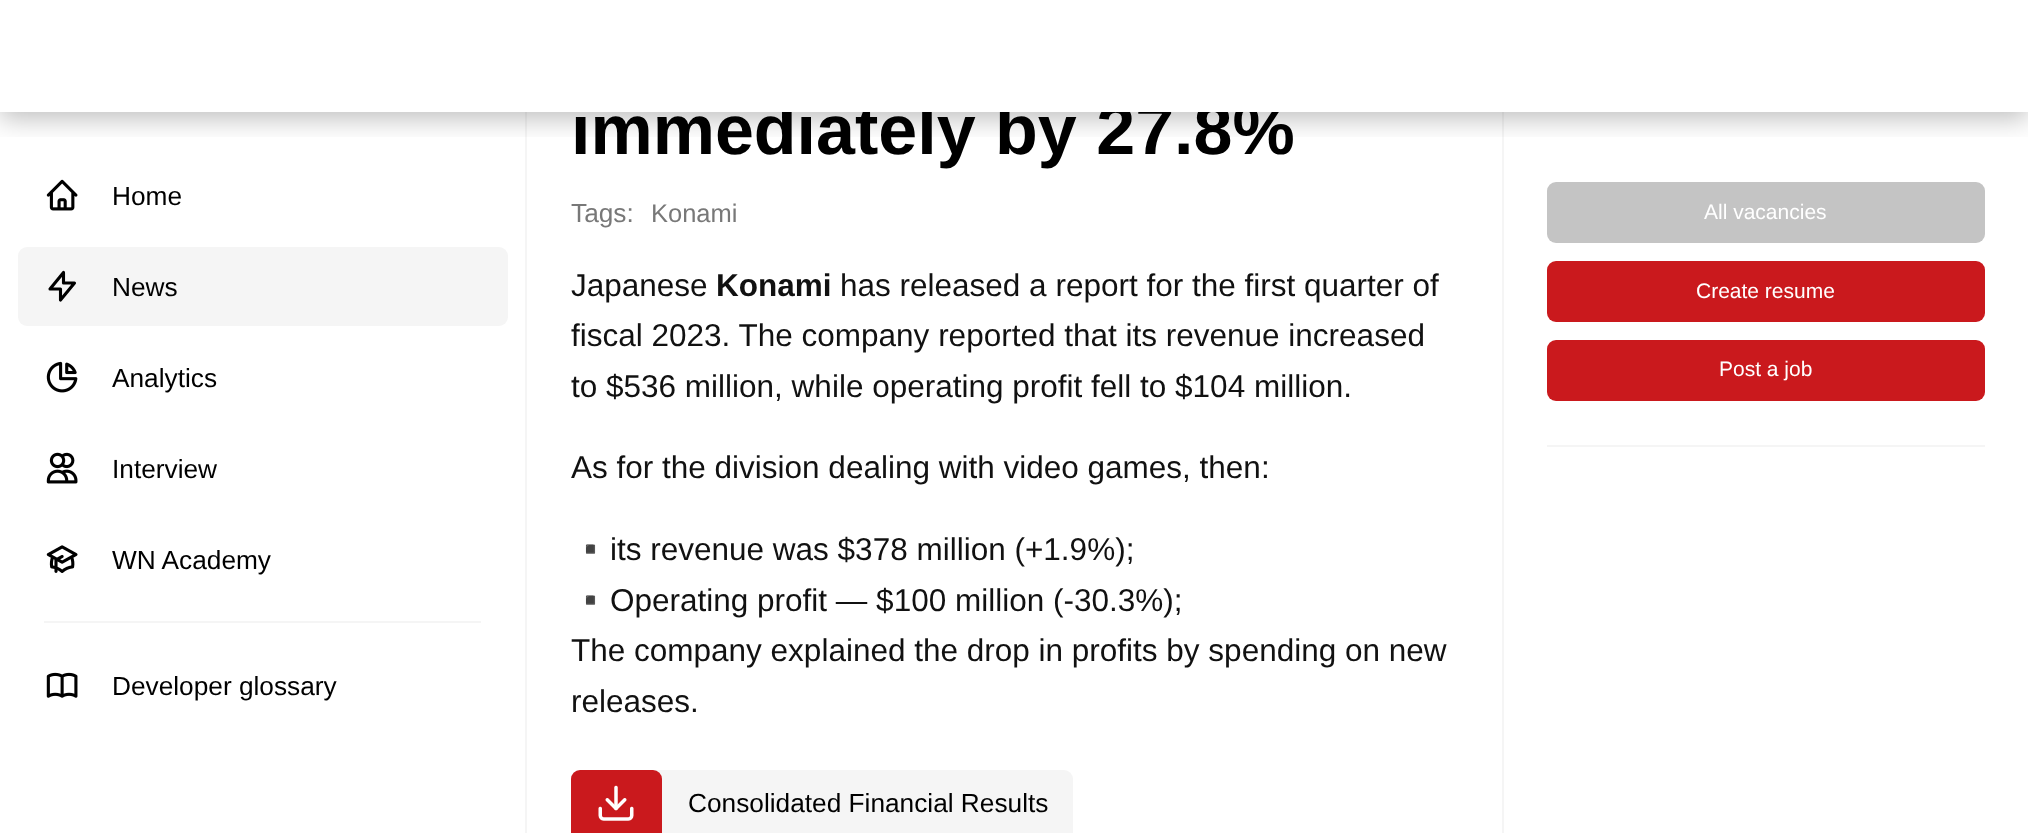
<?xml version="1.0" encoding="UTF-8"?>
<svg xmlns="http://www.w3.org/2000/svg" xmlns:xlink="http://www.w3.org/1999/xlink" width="2028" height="833">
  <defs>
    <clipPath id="clip1"><rect x="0" y="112" width="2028" height="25" /></clipPath>
  </defs>
  <rect width="100%" height="100%" fill="#ffffff" />
  <rect x="525" y="112" width="2" height="721" fill="#f5f5f5" />
  <image x="46" y="179" width="32" height="32" xlink:href="image1.png" />
  <rect x="18" y="247" width="490" height="79" rx="9" fill="#f5f5f5" />
  <path d="M 63.5 272.5 v 10.5 h 11 l -14 17 v -11 h -10.5 z" fill="none" stroke="#000000" stroke-width="3.1" stroke-linecap="round" stroke-linejoin="round" />
  <image x="46" y="361" width="32" height="32" xlink:href="image2.png" />
  <image x="46" y="452" width="32" height="32" xlink:href="image3.png" />
  <image x="46" y="545" width="32" height="28" xlink:href="image4.png" />
  <rect x="44" y="621" width="437" height="2" fill="#f5f5f5" />
  <image x="46" y="672" width="32" height="26" xlink:href="image5.png" />
  <rect x="571" y="770" width="502" height="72" rx="9" fill="#f5f5f5" />
  <rect x="571" y="770" width="91" height="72" rx="9" fill="#ca191d" />
  <image x="598" y="785" width="36" height="36" xlink:href="image6.png" />
  <rect x="1502" y="112" width="2" height="721" fill="#f5f5f5" />
  <rect x="1547" y="445" width="438" height="2" fill="#f5f5f5" />
  <rect x="1547" y="182" width="438" height="61" rx="9" fill="#c4c4c4" />
  <rect x="1547" y="261" width="438" height="61" rx="9" fill="#ca191d" />
  <rect x="1547" y="340" width="438" height="61" rx="9" fill="#ca191d" />
  <text x="112" y="205" style="font-family: Liberation Sans; font-size: 26.25px; fill: #000000">Home</text>
  <text x="112" y="296" style="font-family: Liberation Sans; font-size: 26.25px; fill: #000000">News</text>
  <text x="112" y="387" style="font-family: Liberation Sans; font-size: 26.25px; fill: #000000">Analytics</text>
  <text x="112" y="478" style="font-family: Liberation Sans; font-size: 26.25px; fill: #000000">Interview</text>
  <text x="112" y="569" style="font-family: Liberation Sans; font-size: 26.25px; fill: #000000">WN Academy</text>
  <text x="112" y="695" style="font-family: Liberation Sans; font-size: 26.25px; fill: #000000">Developer glossary</text>
  <text x="571" y="154" style="font-family: Liberation Sans; font-size: 70px; font-weight: bold; fill: #000000">immediately by 27.8%</text>
  <rect x="575" y="103" width="708" height="9" fill="#ffffff" />
  <g clip-path="url(#clip1)">
    <rect y="7" width="2028" height="112" fill="#000000" fill-opacity="0.25" filter="blur(13px)" />
  </g>
  <text x="571" y="222" style="font-family: Liberation Sans; font-size: 26.25px; fill: #787878">Tags:</text>
  <text x="651" y="222" style="font-family: Liberation Sans; font-size: 25.5px; fill: #787878">Konami</text>
  <text x="571" y="296" style="font-family: Liberation Sans; font-size: 31.5px; fill: #111111">Japanese</text>
  <text x="716" y="296" style="font-family: Liberation Sans; font-size: 31.5px; font-weight: bold; fill: #111111">Konami</text>
  <text x="840" y="296" style="font-family: Liberation Sans; font-size: 31.5px; fill: #111111">has released a report for the first quarter of</text>
  <text x="571" y="346" style="font-family: Liberation Sans; font-size: 31.5px; fill: #111111">fiscal 2023. The company reported that its revenue increased</text>
  <text x="571" y="397" style="font-family: Liberation Sans; font-size: 31.5px; fill: #111111">to $536 million, while operating profit fell to $104 million.</text>
  <text x="571" y="478" style="font-family: Liberation Sans; font-size: 31.5px; fill: #111111">As for the division dealing with video games, then:</text>
  <text x="571" y="560" style="font-family: Noto Color Emoji; font-size: 31.5px; fill: #111111">▪️</text>
  <text x="610" y="560" style="font-family: Liberation Sans; font-size: 31.5px; fill: #111111">its revenue was $378 million (+1.9%);</text>
  <text x="571" y="611" style="font-family: Noto Color Emoji; font-size: 31.5px; fill: #111111">▪️</text>
  <text x="610" y="611" style="font-family: Liberation Sans; font-size: 31.5px; fill: #111111">Operating profit — $100 million (-30.3%);</text>
  <text x="571" y="661" style="font-family: Liberation Sans; font-size: 31.5px; fill: #111111">The company explained the drop in profits by spending on new</text>
  <text x="571" y="712" style="font-family: Liberation Sans; font-size: 31.5px; fill: #111111">releases.</text>
  <text x="688" y="812" style="font-family: Liberation Sans; font-size: 26.25px; fill: #000000">Consolidated Financial Results</text>
  <text x="1704" y="219" style="font-family: Liberation Sans; font-size: 21px; fill: #ffffff">All vacancies</text>
  <text x="1696" y="298" style="font-family: Liberation Sans; font-size: 21px; fill: #ffffff">Create resume</text>
  <text x="1719" y="376" style="font-family: Liberation Sans; font-size: 21px; fill: #ffffff">Post a job</text>
</svg>
